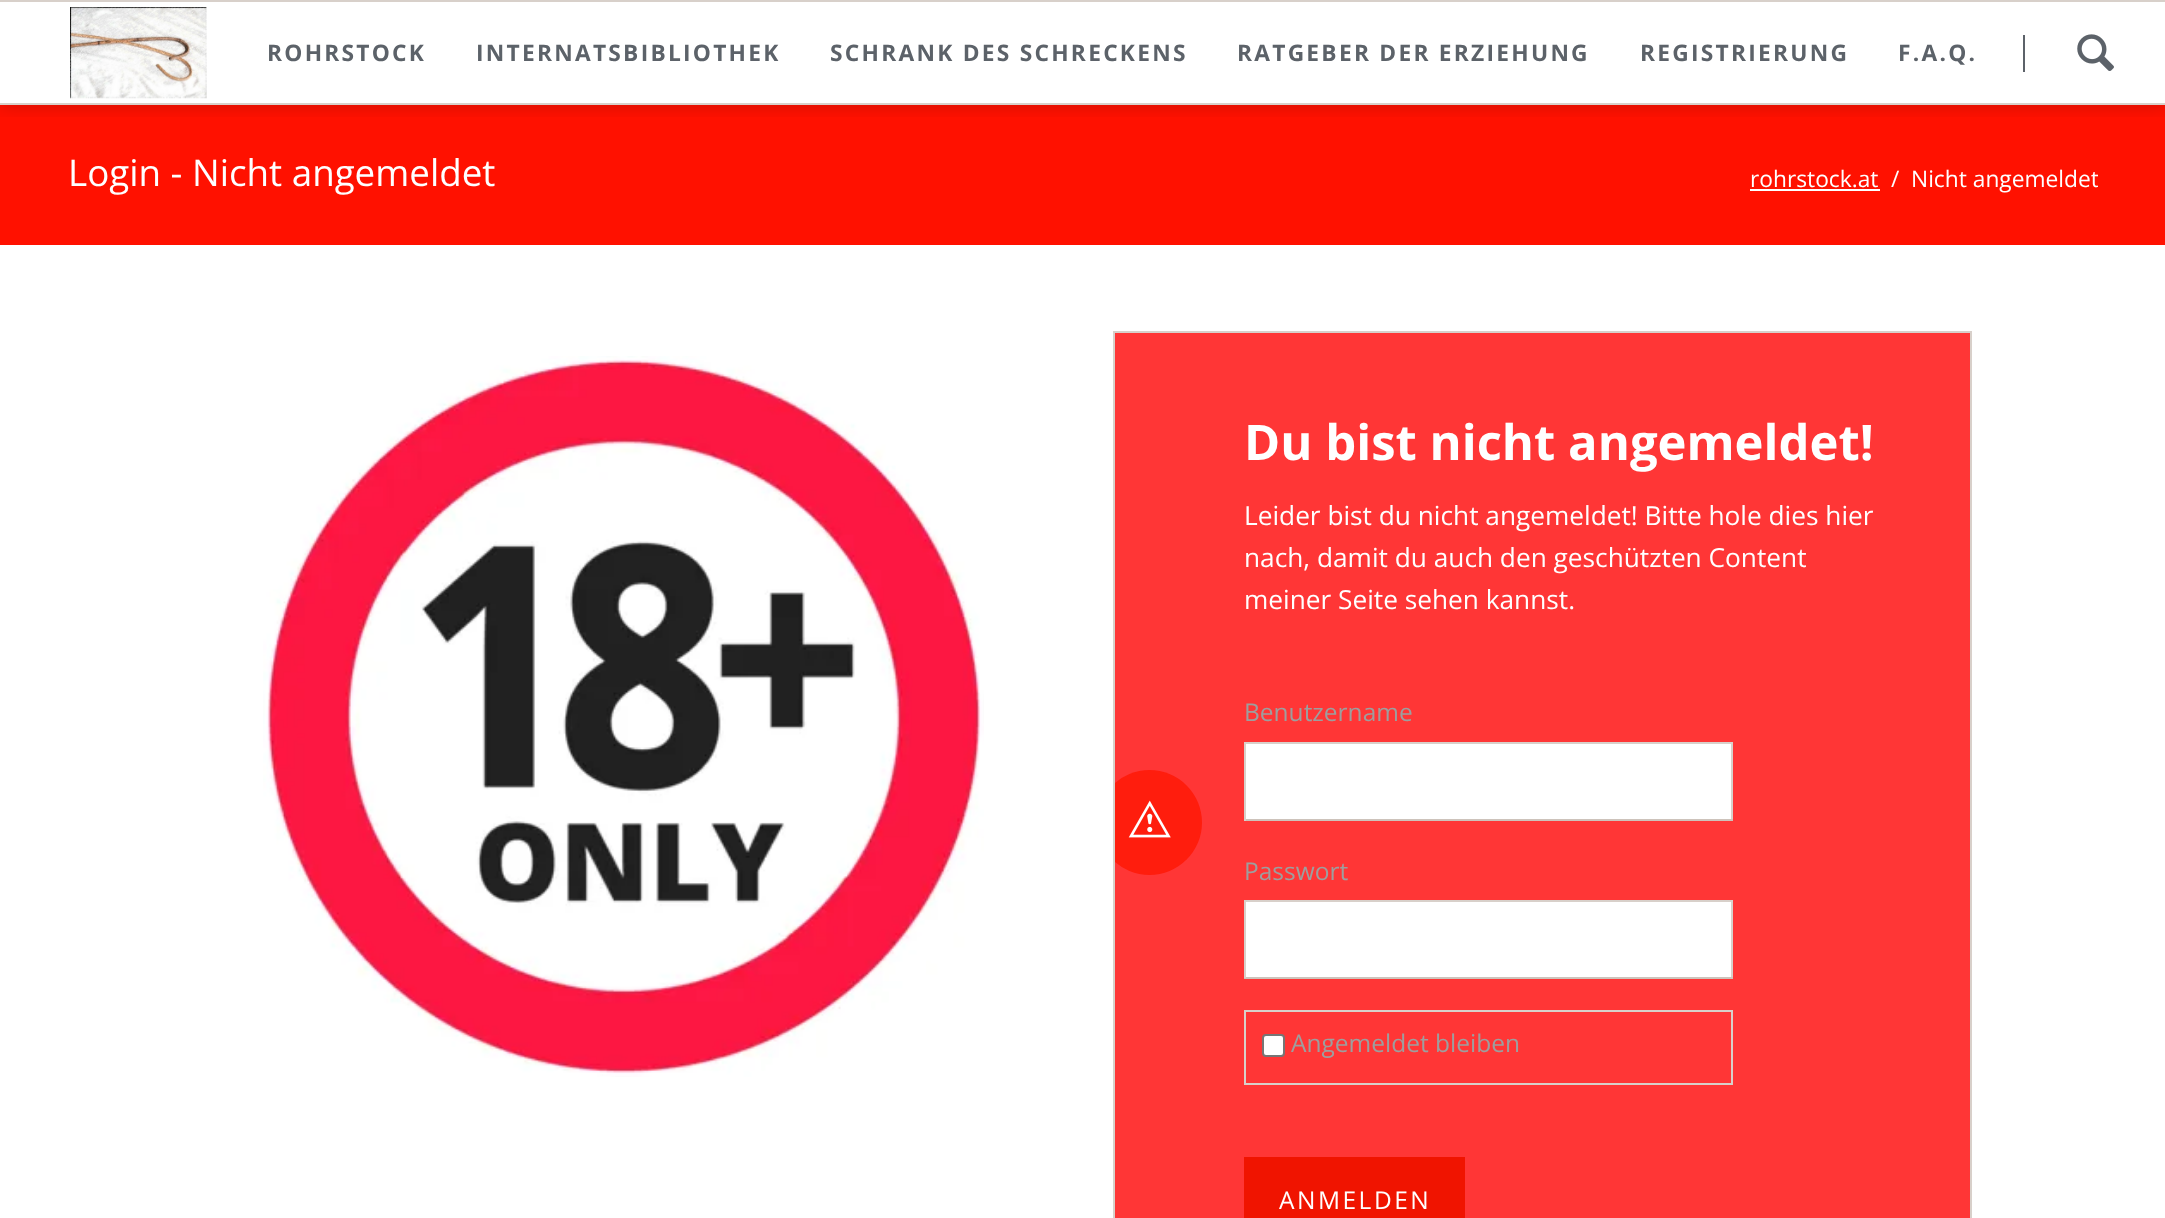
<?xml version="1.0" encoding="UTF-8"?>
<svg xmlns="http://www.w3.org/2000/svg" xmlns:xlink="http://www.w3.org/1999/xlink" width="2165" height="1218">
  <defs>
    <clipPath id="clip1"><rect x="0" y="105" width="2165" height="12" /></clipPath>
    <clipPath id="clip2"><rect x="1115" y="333" width="856" height="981" /></clipPath>
    <clipPath id="clip3"><rect x="1750" y="105" width="348" height="140" /></clipPath>
  </defs>
  <rect width="100%" height="100%" fill="#ffffff" />
  <rect y="105" width="2165" height="140" fill="#ff1100" />
  <g clip-path="url(#clip1)">
    <rect width="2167" height="105" fill="#000000" fill-opacity="0.2" filter="blur(9px)" />
  </g>
  <rect width="2165" height="2" fill="#d8d0ca" />
  <rect y="103" width="2165" height="2" fill="#d8d0ca" />
  <image x="70" y="7" width="137" height="92" xlink:href="image1.png" />
  <rect x="2023" y="35" width="2" height="37" fill="#5c6269" />
  <image x="2077" y="34" width="37" height="37" xlink:href="image2.png" />
  <rect x="1750" y="189" width="130" height="2" fill="#ffffff" />
  <image x="263" y="356" width="721" height="721" xlink:href="image3.png" />
  <rect x="1114" y="332" width="857" height="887" fill="#ff3636" stroke="#d8d0ca" stroke-width="2" />
  <g clip-path="url(#clip2)">
    <circle cx="1149.5" cy="822.5" r="52.5" fill="#ff1d0d" />
  </g>
  <image x="1128" y="800" width="43" height="38" xlink:href="image4.png" />
  <rect x="1246" y="744" width="485" height="75" fill="#ffffff" />
  <rect x="1244" y="742" width="489" height="2" fill="#d8d0ca" />
  <rect x="1731" y="742" width="2" height="79" fill="#d8d0ca" />
  <rect x="1244" y="819" width="489" height="2" fill="#cdc3bb" />
  <rect x="1244" y="742" width="2" height="79" fill="#d8d0ca" />
  <rect x="1246" y="902" width="485" height="75" fill="#ffffff" />
  <rect x="1244" y="900" width="489" height="2" fill="#d8d0ca" />
  <rect x="1731" y="900" width="2" height="78" fill="#d8d0ca" />
  <rect x="1244" y="977" width="489" height="2" fill="#cdc3bb" />
  <rect x="1244" y="900" width="2" height="78" fill="#d8d0ca" />
  <rect x="1245" y="1011" width="487" height="73" fill="none" stroke="#d8d0ca" stroke-width="2" />
  <rect x="1263" y="1035" width="21" height="21" rx="3" fill="#ffffff" stroke="#767676" stroke-width="2" />
  <rect x="1244" y="1157" width="221" height="61" fill="#f01400" />
  <text x="267" y="61" style="font-family: Open Sans; font-size: 22.75px; font-weight: bold; letter-spacing: 2.25px; fill: #5c6269">ROHRSTOCK</text>
  <text x="476" y="61" style="font-family: Open Sans; font-size: 22.75px; font-weight: bold; letter-spacing: 2.25px; fill: #5c6269">INTERNATSBIBLIOTHEK</text>
  <text x="830" y="61" style="font-family: Open Sans; font-size: 22.75px; font-weight: bold; letter-spacing: 2.25px; fill: #5c6269">SCHRANK DES SCHRECKENS</text>
  <text x="1237" y="61" style="font-family: Open Sans; font-size: 22.75px; font-weight: bold; letter-spacing: 2.25px; fill: #5c6269">RATGEBER DER ERZIEHUNG</text>
  <text x="1640" y="61" style="font-family: Open Sans; font-size: 22.75px; font-weight: bold; letter-spacing: 2.25px; fill: #5c6269">REGISTRIERUNG</text>
  <text x="1898" y="61" style="font-family: Open Sans; font-size: 22.75px; font-weight: bold; letter-spacing: 2.25px; fill: #5c6269">F.A.Q.</text>
  <text x="68" y="186" style="font-family: Open Sans; font-size: 36.75px; fill: #ffffff">Login - Nicht angemeldet</text>
  <text x="1750" y="187" style="font-family: Open Sans; font-size: 22.75px; fill: #ffffff">rohrstock.at</text>
  <text x="1891" y="187" style="font-family: Open Sans; font-size: 22.75px; fill: #ffffff">/</text>
  <g clip-path="url(#clip3)">
    <text x="1911" y="187" style="font-family: Open Sans; font-size: 22.75px; fill: #ffffff">Nicht angemeldet</text>
  </g>
  <text x="1244" y="460" style="font-family: Open Sans; font-size: 49px; font-weight: bold; fill: #ffffff">Du bist nicht angemeldet!</text>
  <text x="1244" y="525" style="font-family: Open Sans; font-size: 26.25px; fill: #ffffff">Leider bist du nicht angemeldet! Bitte hole dies hier</text>
  <text x="1244" y="567" style="font-family: Open Sans; font-size: 26.25px; fill: #ffffff">nach, damit du auch den geschützten Content</text>
  <text x="1244" y="609" style="font-family: Open Sans; font-size: 26.25px; fill: #ffffff">meiner Seite sehen kannst.</text>
  <text x="1244" y="721" style="font-family: Open Sans; font-size: 24.5px; fill: #9e9e9e">Benutzername</text>
  <text x="1244" y="880" style="font-family: Open Sans; font-size: 24.5px; fill: #9e9e9e">Passwort</text>
  <text x="1291" y="1052" style="font-family: Open Sans; font-size: 24.5px; fill: #9e9e9e">Angemeldet bleiben</text>
  <text x="1279" y="1209" style="font-family: Open Sans; font-size: 24.5px; letter-spacing: 2.5px; fill: #ffffff">ANMELDEN</text>
</svg>
